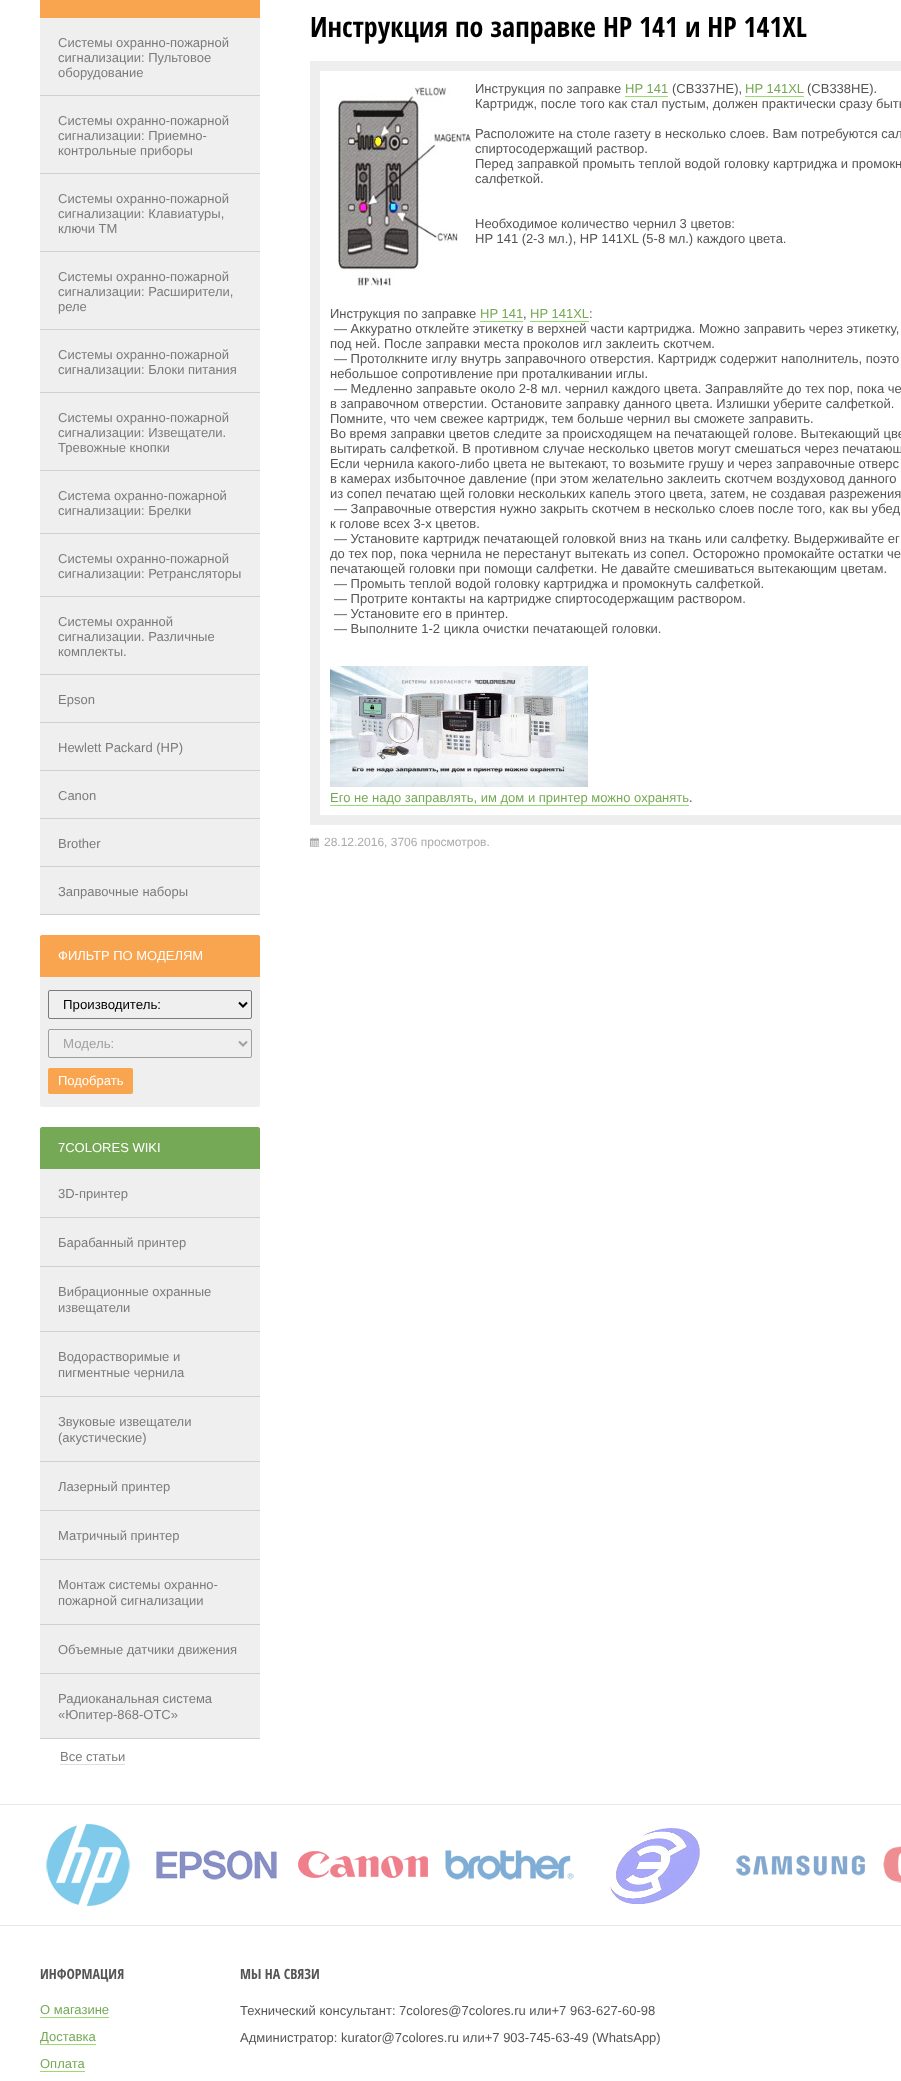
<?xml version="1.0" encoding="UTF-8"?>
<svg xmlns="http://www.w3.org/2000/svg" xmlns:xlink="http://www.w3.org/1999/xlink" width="901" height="2081">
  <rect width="100%" height="100%" fill="#ffffff" />
  <rect x="40" width="220" height="18" fill="#f9a44f" />
  <rect x="40" y="18" width="220" height="77" fill="#efefef" />
  <rect x="40" y="95" width="220" height="1" fill="#d1cfcf" />
  <rect x="40" y="96" width="220" height="77" fill="#efefef" />
  <rect x="40" y="173" width="220" height="1" fill="#d1cfcf" />
  <rect x="40" y="174" width="220" height="77" fill="#efefef" />
  <rect x="40" y="251" width="220" height="1" fill="#d1cfcf" />
  <rect x="40" y="252" width="220" height="77" fill="#efefef" />
  <rect x="40" y="329" width="220" height="1" fill="#d1cfcf" />
  <rect x="40" y="330" width="220" height="62" fill="#efefef" />
  <rect x="40" y="392" width="220" height="1" fill="#d1cfcf" />
  <rect x="40" y="393" width="220" height="77" fill="#efefef" />
  <rect x="40" y="470" width="220" height="1" fill="#d1cfcf" />
  <rect x="40" y="471" width="220" height="62" fill="#efefef" />
  <rect x="40" y="533" width="220" height="1" fill="#d1cfcf" />
  <rect x="40" y="534" width="220" height="62" fill="#efefef" />
  <rect x="40" y="596" width="220" height="1" fill="#d1cfcf" />
  <rect x="40" y="597" width="220" height="77" fill="#efefef" />
  <rect x="40" y="674" width="220" height="1" fill="#d1cfcf" />
  <rect x="40" y="675" width="220" height="47" fill="#efefef" />
  <rect x="40" y="722" width="220" height="1" fill="#d1cfcf" />
  <rect x="40" y="723" width="220" height="47" fill="#efefef" />
  <rect x="40" y="770" width="220" height="1" fill="#d1cfcf" />
  <rect x="40" y="771" width="220" height="47" fill="#efefef" />
  <rect x="40" y="818" width="220" height="1" fill="#d1cfcf" />
  <rect x="40" y="819" width="220" height="47" fill="#efefef" />
  <rect x="40" y="866" width="220" height="1" fill="#d1cfcf" />
  <rect x="40" y="867" width="220" height="47" fill="#efefef" />
  <rect x="40" y="914" width="220" height="1" fill="#d1cfcf" />
  <rect x="40" y="935" width="220" height="172" rx="2" fill="#efefef" />
  <path d="M 42 935 h 216 c 1 0 2 1 2 2 v 40 h -220 v -40 c 0 -1 1 -2 2 -2 z" fill="#f9a44f" />
  <rect x="48.5" y="990.5" width="203" height="28" rx="1.5" fill="none" stroke="#7b7b7b" />
  <path d="M 239 1002.5 l 4 4 l 4 -4" fill="none" stroke="#000000" stroke-width="2" />
  <rect x="48.5" y="1029.5" width="203" height="28" rx="1.5" fill="none" stroke="#9e9e9e" />
  <path d="M 239 1041.5 l 4 4 l 4 -4" fill="none" stroke="#a1a1a1" stroke-width="2" />
  <rect x="48" y="1068" width="85" height="26" rx="2" fill="#f9a44f" />
  <path d="M 42 1127 h 216 c 1 0 2 1 2 2 v 40 h -220 v -40 c 0 -1 1 -2 2 -2 z" fill="#76a956" />
  <rect x="40" y="1169" width="220" height="48" fill="#efefef" />
  <rect x="40" y="1217" width="220" height="1" fill="#d1cfcf" />
  <rect x="40" y="1218" width="220" height="48" fill="#efefef" />
  <rect x="40" y="1266" width="220" height="1" fill="#d1cfcf" />
  <rect x="40" y="1267" width="220" height="64" fill="#efefef" />
  <rect x="40" y="1331" width="220" height="1" fill="#d1cfcf" />
  <rect x="40" y="1332" width="220" height="64" fill="#efefef" />
  <rect x="40" y="1396" width="220" height="1" fill="#d1cfcf" />
  <rect x="40" y="1397" width="220" height="64" fill="#efefef" />
  <rect x="40" y="1461" width="220" height="1" fill="#d1cfcf" />
  <rect x="40" y="1462" width="220" height="48" fill="#efefef" />
  <rect x="40" y="1510" width="220" height="1" fill="#d1cfcf" />
  <rect x="40" y="1511" width="220" height="48" fill="#efefef" />
  <rect x="40" y="1559" width="220" height="1" fill="#d1cfcf" />
  <rect x="40" y="1560" width="220" height="64" fill="#efefef" />
  <rect x="40" y="1624" width="220" height="1" fill="#d1cfcf" />
  <rect x="40" y="1625" width="220" height="48" fill="#efefef" />
  <rect x="40" y="1673" width="220" height="1" fill="#d1cfcf" />
  <rect x="40" y="1674" width="220" height="64" fill="#efefef" />
  <rect x="40" y="1738" width="220" height="1" fill="#d1cfcf" />
  <rect x="60" y="1764" width="65" height="1" fill="#dedede" />
  <rect x="315" y="66" width="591" height="754" fill="none" stroke="#eeeeee" stroke-width="10" />
  <image x="337" y="87" width="134" height="199" xlink:href="image1.png" />
  <rect x="625" y="96" width="43" height="1" fill="#99db70" />
  <rect x="745" y="96" width="59" height="1" fill="#99db70" />
  <rect x="480" y="321" width="43" height="1" fill="#99db70" />
  <rect x="530" y="321" width="59" height="1" fill="#99db70" />
  <image x="330" y="666" width="258" height="121" xlink:href="image2.png" />
  <rect x="330" y="805" width="359" height="1" fill="#99db70" />
  <image x="310" y="837" width="9" height="10" xlink:href="image3.png" />
  <rect y="1804" width="901" height="1" fill="#e8e8e8" />
  <rect y="1925" width="901" height="1" fill="#e8e8e8" />
  <image x="46" y="1824" width="84" height="82" xlink:href="image4.png" />
  <image x="156" y="1850" width="121" height="30" xlink:href="image5.png" />
  <image x="298" y="1851" width="130" height="27" xlink:href="image6.png" />
  <image x="445" y="1850" width="129" height="30" xlink:href="image7.png" />
  <image x="610" y="1828" width="90" height="76" xlink:href="image8.png" />
  <image x="736" y="1855" width="129" height="21" xlink:href="image9.png" />
  <image x="883" y="1846" width="18" height="37" xlink:href="image10.png" />
  <rect x="40" y="2017" width="69" height="1" fill="#99db70" />
  <rect x="40" y="2044" width="56" height="1" fill="#99db70" />
  <rect x="40" y="2071" width="45" height="1" fill="#99db70" />
  <text x="58" y="47" style="font-family: Liberation Sans; font-size: 13px; fill: #7b7b7b">Системы охранно-пожарной</text>
  <text x="58" y="62" style="font-family: Liberation Sans; font-size: 13px; fill: #7b7b7b">сигнализации: Пультовое</text>
  <text x="58" y="77" style="font-family: Liberation Sans; font-size: 13px; fill: #7b7b7b">оборудование</text>
  <text x="58" y="125" style="font-family: Liberation Sans; font-size: 13px; fill: #7b7b7b">Системы охранно-пожарной</text>
  <text x="58" y="140" style="font-family: Liberation Sans; font-size: 13px; fill: #7b7b7b">сигнализации: Приемно-</text>
  <text x="58" y="155" style="font-family: Liberation Sans; font-size: 13px; fill: #7b7b7b">контрольные приборы</text>
  <text x="58" y="203" style="font-family: Liberation Sans; font-size: 13px; fill: #7b7b7b">Системы охранно-пожарной</text>
  <text x="58" y="218" style="font-family: Liberation Sans; font-size: 13px; fill: #7b7b7b">сигнализации: Клавиатуры,</text>
  <text x="58" y="233" style="font-family: Liberation Sans; font-size: 13px; fill: #7b7b7b">ключи ТМ</text>
  <text x="58" y="281" style="font-family: Liberation Sans; font-size: 13px; fill: #7b7b7b">Системы охранно-пожарной</text>
  <text x="58" y="296" style="font-family: Liberation Sans; font-size: 13px; fill: #7b7b7b">сигнализации: Расширители,</text>
  <text x="58" y="311" style="font-family: Liberation Sans; font-size: 13px; fill: #7b7b7b">реле</text>
  <text x="58" y="359" style="font-family: Liberation Sans; font-size: 13px; fill: #7b7b7b">Системы охранно-пожарной</text>
  <text x="58" y="374" style="font-family: Liberation Sans; font-size: 13px; fill: #7b7b7b">сигнализации: Блоки питания</text>
  <text x="58" y="422" style="font-family: Liberation Sans; font-size: 13px; fill: #7b7b7b">Системы охранно-пожарной</text>
  <text x="58" y="437" style="font-family: Liberation Sans; font-size: 13px; fill: #7b7b7b">сигнализации: Извещатели.</text>
  <text x="58" y="452" style="font-family: Liberation Sans; font-size: 13px; fill: #7b7b7b">Тревожные кнопки</text>
  <text x="58" y="500" style="font-family: Liberation Sans; font-size: 13px; fill: #7b7b7b">Система охранно-пожарной</text>
  <text x="58" y="515" style="font-family: Liberation Sans; font-size: 13px; fill: #7b7b7b">сигнализации: Брелки</text>
  <text x="58" y="563" style="font-family: Liberation Sans; font-size: 13px; fill: #7b7b7b">Системы охранно-пожарной</text>
  <text x="58" y="578" style="font-family: Liberation Sans; font-size: 13px; fill: #7b7b7b">сигнализации: Ретрансляторы</text>
  <text x="58" y="626" style="font-family: Liberation Sans; font-size: 13px; fill: #7b7b7b">Системы охранной</text>
  <text x="58" y="641" style="font-family: Liberation Sans; font-size: 13px; fill: #7b7b7b">сигнализации. Различные</text>
  <text x="58" y="656" style="font-family: Liberation Sans; font-size: 13px; fill: #7b7b7b">комплекты.</text>
  <text x="58" y="704" style="font-family: Liberation Sans; font-size: 13px; fill: #7b7b7b">Epson</text>
  <text x="58" y="752" style="font-family: Liberation Sans; font-size: 13px; fill: #7b7b7b">Hewlett Packard (HP)</text>
  <text x="58" y="800" style="font-family: Liberation Sans; font-size: 13px; fill: #7b7b7b">Canon</text>
  <text x="58" y="848" style="font-family: Liberation Sans; font-size: 13px; fill: #7b7b7b">Brother</text>
  <text x="58" y="896" style="font-family: Liberation Sans; font-size: 13px; fill: #7b7b7b">Заправочные наборы</text>
  <text x="58" y="960" style="font-family: Liberation Sans; font-size: 13px; fill: #ffffff">ФИЛЬТР ПО МОДЕЛЯМ</text>
  <text x="63" y="1009" style="font-family: Liberation Sans; font-size: 13.25px; fill: #000000">Производитель:</text>
  <text x="63" y="1048" style="font-family: Liberation Sans; font-size: 13.25px; fill: #a1a1a1">Модель:</text>
  <text x="58" y="1085" style="font-family: Liberation Sans; font-size: 13px; fill: #ffffff">Подобрать</text>
  <text x="58" y="1152" style="font-family: Liberation Sans; font-size: 13px; fill: #ffffff">7COLORES WIKI</text>
  <text x="58" y="1198" style="font-family: Liberation Sans; font-size: 13px; fill: #7b7b7b">3D-принтер</text>
  <text x="58" y="1247" style="font-family: Liberation Sans; font-size: 13px; fill: #7b7b7b">Барабанный принтер</text>
  <text x="58" y="1296" style="font-family: Liberation Sans; font-size: 13px; fill: #7b7b7b">Вибрационные охранные</text>
  <text x="58" y="1312" style="font-family: Liberation Sans; font-size: 13px; fill: #7b7b7b">извещатели</text>
  <text x="58" y="1361" style="font-family: Liberation Sans; font-size: 13px; fill: #7b7b7b">Водорастворимые и</text>
  <text x="58" y="1377" style="font-family: Liberation Sans; font-size: 13px; fill: #7b7b7b">пигментные чернила</text>
  <text x="58" y="1426" style="font-family: Liberation Sans; font-size: 13px; fill: #7b7b7b">Звуковые извещатели</text>
  <text x="58" y="1442" style="font-family: Liberation Sans; font-size: 13px; fill: #7b7b7b">(акустические)</text>
  <text x="58" y="1491" style="font-family: Liberation Sans; font-size: 13px; fill: #7b7b7b">Лазерный принтер</text>
  <text x="58" y="1540" style="font-family: Liberation Sans; font-size: 13px; fill: #7b7b7b">Матричный принтер</text>
  <text x="58" y="1589" style="font-family: Liberation Sans; font-size: 13px; fill: #7b7b7b">Монтаж системы охранно-</text>
  <text x="58" y="1605" style="font-family: Liberation Sans; font-size: 13px; fill: #7b7b7b">пожарной сигнализации</text>
  <text x="58" y="1654" style="font-family: Liberation Sans; font-size: 13px; fill: #7b7b7b">Объемные датчики движения</text>
  <text x="58" y="1703" style="font-family: Liberation Sans; font-size: 13px; fill: #7b7b7b">Радиоканальная система</text>
  <text x="58" y="1719" style="font-family: Liberation Sans; font-size: 13px; fill: #7b7b7b">«Юпитер-868-ОТС»</text>
  <text x="60" y="1761" style="font-family: Liberation Sans; font-size: 13px; fill: #7b7b7b">Все статьи</text>
  <text x="310" y="37" style="font-family: Open Sans Condensed; font-size: 28px; font-weight: bold; fill: #000000">Инструкция по заправке HP 141 и HP 141XL</text>
  <text x="475" y="93" style="font-family: Liberation Sans; font-size: 13px; fill: #555555">Инструкция по заправке</text>
  <text x="625" y="93" style="font-family: Liberation Sans; font-size: 13px; fill: #76a956">HP 141</text>
  <text x="672" y="93" style="font-family: Liberation Sans; font-size: 13px; fill: #555555">(CB337HE),</text>
  <text x="745" y="93" style="font-family: Liberation Sans; font-size: 13px; fill: #76a956">HP 141XL</text>
  <text x="807" y="93" style="font-family: Liberation Sans; font-size: 13px; fill: #555555">(CB338HE).</text>
  <text x="475" y="108" style="font-family: Liberation Sans; font-size: 13px; fill: #555555">Картридж, после того как стал пустым, должен практически сразу быть</text>
  <text x="475" y="138" style="font-family: Liberation Sans; font-size: 13px; fill: #555555">Расположите на столе газету в несколько слоев. Вам потребуются сал</text>
  <text x="475" y="153" style="font-family: Liberation Sans; font-size: 13px; fill: #555555">спиртосодержащий раствор.</text>
  <text x="475" y="168" style="font-family: Liberation Sans; font-size: 13px; fill: #555555">Перед заправкой промыть теплой водой головку картриджа и промокн</text>
  <text x="475" y="183" style="font-family: Liberation Sans; font-size: 13px; fill: #555555">салфеткой.</text>
  <text x="475" y="228" style="font-family: Liberation Sans; font-size: 13px; fill: #555555">Необходимое количество чернил 3 цветов:</text>
  <text x="475" y="243" style="font-family: Liberation Sans; font-size: 13px; fill: #555555">HP 141 (2</text>
  <text x="533" y="243" style="font-family: Liberation Sans; font-size: 13px; fill: #555555">-3 мл.), HP 141XL</text>
  <text x="642" y="243" style="font-family: Liberation Sans; font-size: 13px; fill: #555555">(5-8 мл.) каждого цвета.</text>
  <text x="330" y="318" style="font-family: Liberation Sans; font-size: 13px; fill: #555555">Инструкция по заправке</text>
  <text x="480" y="318" style="font-family: Liberation Sans; font-size: 13px; fill: #76a956">HP 141</text>
  <text x="523" y="318" style="font-family: Liberation Sans; font-size: 13px; fill: #555555">,</text>
  <text x="530" y="318" style="font-family: Liberation Sans; font-size: 13px; fill: #76a956">HP 141XL</text>
  <text x="589" y="318" style="font-family: Liberation Sans; font-size: 13px; fill: #555555">:</text>
  <text x="334" y="333" style="font-family: Liberation Sans; font-size: 13px; fill: #555555">— Аккуратно отклейте этикетку в верхней части картриджа. Можно заправить через этикетку,</text>
  <text x="330" y="348" style="font-family: Liberation Sans; font-size: 13px; fill: #555555">под ней. После заправки места проколов игл заклеить скотчем.</text>
  <text x="334" y="363" style="font-family: Liberation Sans; font-size: 13px; fill: #555555">— Протолкните иглу внутрь заправочного отверстия. Картридж содержит наполнитель, поэто</text>
  <text x="330" y="378" style="font-family: Liberation Sans; font-size: 13px; fill: #555555">небольшое сопротивление при проталкивании иглы.</text>
  <text x="334" y="393" style="font-family: Liberation Sans; font-size: 13px; fill: #555555">— Медленно заправьте около 2-8 мл. чернил каждого цвета. Заправляйте до тех пор, пока че</text>
  <text x="330" y="408" style="font-family: Liberation Sans; font-size: 13px; fill: #555555">в заправочном отверстии. Остановите заправку данного цвета. Излишки уберите салфеткой.</text>
  <text x="330" y="423" style="font-family: Liberation Sans; font-size: 13px; fill: #555555">Помните, что чем свежее картридж, тем больше чернил вы сможете заправить.</text>
  <text x="330" y="438" style="font-family: Liberation Sans; font-size: 13px; fill: #555555">Во время заправки цветов следите за происходящем на печатающей голове. Вытекающий цве</text>
  <text x="330" y="453" style="font-family: Liberation Sans; font-size: 13px; fill: #555555">вытирать салфеткой. В противном случае несколько цветов могут смешаться через печатающ</text>
  <text x="330" y="468" style="font-family: Liberation Sans; font-size: 13px; fill: #555555">Если чернила какого-либо цвета не вытекают, то возьмите грушу и через заправочные отверс</text>
  <text x="330" y="483" style="font-family: Liberation Sans; font-size: 13px; fill: #555555">в камерах избыточное давление (при этом желательно заклеить скотчем воздуховод данного</text>
  <text x="330" y="498" style="font-family: Liberation Sans; font-size: 13px; fill: #555555">из сопел печатаю щей головки нескольких капель этого цвета, затем, не создавая разрежения</text>
  <text x="334" y="513" style="font-family: Liberation Sans; font-size: 13px; fill: #555555">— Заправочные отверстия нужно закрыть скотчем в несколько слоев после того, как вы убед</text>
  <text x="330" y="528" style="font-family: Liberation Sans; font-size: 13px; fill: #555555">к голове всех 3-х цветов.</text>
  <text x="334" y="543" style="font-family: Liberation Sans; font-size: 13px; fill: #555555">— Установите картридж печатающей головкой вниз на ткань или салфетку. Выдерживайте ег</text>
  <text x="330" y="558" style="font-family: Liberation Sans; font-size: 13px; fill: #555555">до тех пор, пока чернила не перестанут вытекать из сопел. Осторожно промокайте остатки че</text>
  <text x="330" y="573" style="font-family: Liberation Sans; font-size: 13px; fill: #555555">печатающей головки при помощи салфетки. Не давайте смешиваться вытекающим цветам.</text>
  <text x="334" y="588" style="font-family: Liberation Sans; font-size: 13px; fill: #555555">— Промыть теплой водой головку картриджа и промокнуть салфеткой.</text>
  <text x="334" y="603" style="font-family: Liberation Sans; font-size: 13px; fill: #555555">— Протрите контакты на картридже спиртосодержащим раствором.</text>
  <text x="334" y="618" style="font-family: Liberation Sans; font-size: 13px; fill: #555555">— Установите его в принтер.</text>
  <text x="334" y="633" style="font-family: Liberation Sans; font-size: 13px; fill: #555555">— Выполните 1-2 цикла очистки печатающей головки.</text>
  <text x="330" y="802" style="font-family: Liberation Sans; font-size: 13px; fill: #76a956">Его не надо заправлять, им дом и принтер можно охранять</text>
  <text x="689" y="802" style="font-family: Liberation Sans; font-size: 13px; fill: #555555">.</text>
  <text x="324" y="846" style="font-family: Liberation Sans; font-size: 12px; fill: #aaaaaa">28.12.2016, 3706 просмотров.</text>
  <text x="40" y="1979" style="font-family: Open Sans Condensed; font-size: 14px; font-weight: bold; fill: #555555">ИНФОРМАЦИЯ</text>
  <text x="40" y="2014" style="font-family: Liberation Sans; font-size: 13px; fill: #76a956">О магазине</text>
  <text x="40" y="2041" style="font-family: Liberation Sans; font-size: 13px; fill: #76a956">Доставка</text>
  <text x="40" y="2068" style="font-family: Liberation Sans; font-size: 13px; fill: #76a956">Оплата</text>
  <text x="240" y="1979" style="font-family: Open Sans Condensed; font-size: 14px; font-weight: bold; fill: #555555">МЫ НА СВЯЗИ</text>
  <text x="240" y="2015" style="font-family: Liberation Sans; font-size: 13px; fill: #555555">Технический консультант: 7colores@7colores.ru или+7 963-627-60-98</text>
  <text x="240" y="2042" style="font-family: Liberation Sans; font-size: 13px; fill: #555555">Администратор: kurator@7colores.ru или+7 903-745-63-49 (WhatsApp)</text>
</svg>
